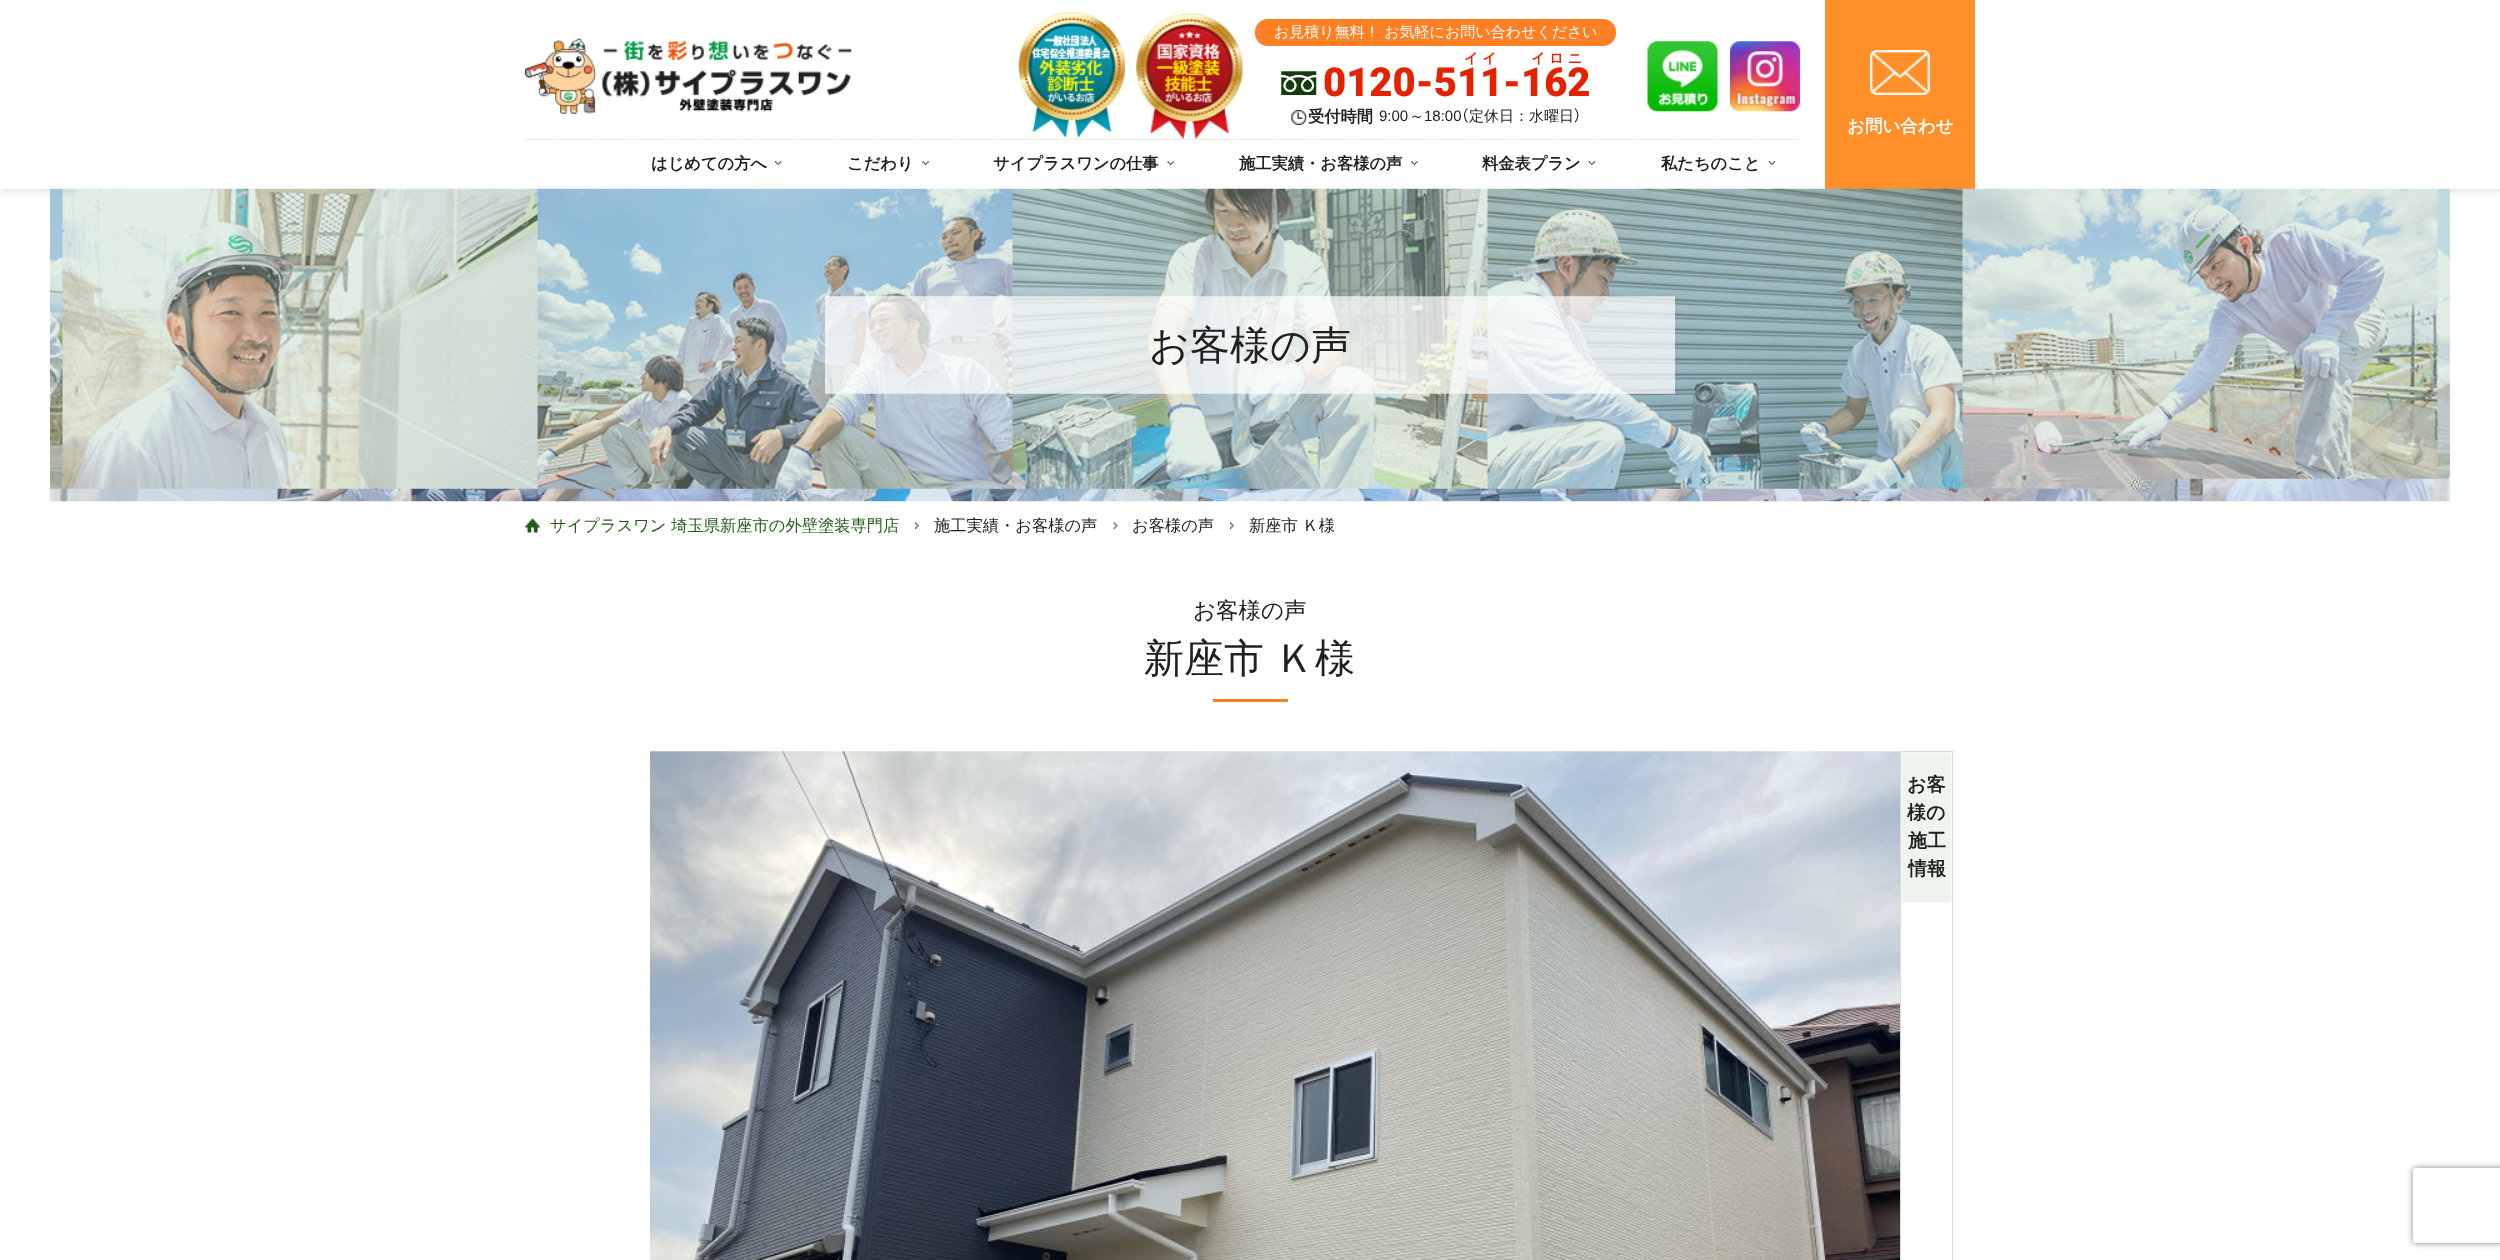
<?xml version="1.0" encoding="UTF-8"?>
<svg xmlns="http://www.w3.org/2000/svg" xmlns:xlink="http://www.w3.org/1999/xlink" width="2500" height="1260">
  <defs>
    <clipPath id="clip1"><path d="M 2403 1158 h 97 v 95 h -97 z m 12.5 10 h 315 c 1.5 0 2.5 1 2.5 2.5 v 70 c 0 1.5 -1 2.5 -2.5 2.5 h -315 c -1.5 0 -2.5 -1 -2.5 -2.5 v -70 c 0 -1.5 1 -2.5 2.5 -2.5 z" clip-rule="evenodd" /></clipPath>
  </defs>
  <rect width="100%" height="100%" fill="#ffffff" />
  <rect width="2500" height="189" fill="#000000" fill-opacity="0.2" filter="blur(5px)" />
  <rect width="2500" height="189" fill="#ffffff" />
  <image x="525" y="38" width="327" height="76" xlink:href="image1.png" />
  <image x="1018" y="12" width="107" height="126" xlink:href="image2.png" />
  <image x="525" y="138" width="1275" height="2" xlink:href="image8.png" />
  <image x="1136" y="13" width="107" height="126" xlink:href="image3.png" />
  <rect x="1255" y="19" width="361" height="27" rx="13" fill="#ff8024" />
  <image x="1281" y="71" width="36" height="24" xlink:href="image4.png" />
  <image x="1291" y="110" width="16" height="15" xlink:href="image5.png" />
  <image x="1647" y="41" width="71" height="71" xlink:href="image6.png" />
  <image x="1730" y="41" width="70" height="71" xlink:href="image7.png" />
  <image x="775" y="161" width="7" height="4" xlink:href="image9.png" />
  <image x="922" y="161" width="7" height="4" xlink:href="image10.png" />
  <image x="1167" y="161" width="7" height="4" xlink:href="image10.png" />
  <image x="1411" y="161" width="7" height="4" xlink:href="image11.png" />
  <image x="1588" y="161" width="7" height="4" xlink:href="image12.png" />
  <image x="1768" y="161" width="7" height="4" xlink:href="image12.png" />
  <rect x="1825" width="150" height="189" fill="#ff8f28" />
  <image x="1870" y="50" width="60" height="45" xlink:href="image13.png" />
  <image x="50" y="188" width="2400" height="314" xlink:href="image14.png" />
  <image x="825" y="296" width="850" height="98" xlink:href="image15.png" />
  <image x="525" y="518" width="15" height="15" xlink:href="image16.png" />
  <image x="915" y="522" width="4" height="7" xlink:href="image17.png" />
  <image x="1113" y="522" width="5" height="7" xlink:href="image18.png" />
  <image x="1230" y="522" width="4" height="7" xlink:href="image17.png" />
  <rect x="1213" y="699" width="75" height="3" fill="#ff8024" />
  <image x="650" y="751" width="1250" height="509" xlink:href="image19.png" />
  <rect x="1900.5" y="751.5" width="52" height="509" fill="none" stroke="#d3e0d2" />
  <image x="1901" y="752" width="51" height="151" xlink:href="image20.png" />
  <g clip-path="url(#clip1)">
    <rect x="2413" y="1168" width="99" height="75" rx="2.5" fill="#808080" filter="blur(3px)" />
  </g>
  <text x="1274" y="37" style="font-family: WenQuanYi Zen Hei; font-size: 15px; font-weight: 500; fill: #ffffff">お見積り無料！ お気軽にお問い合わせください</text>
  <text x="1464" y="63" style="font-family: WenQuanYi Zen Hei; font-size: 14px; font-weight: bold; letter-spacing: 4px; fill: #e62100">イイ</text>
  <text x="1531" y="63" style="font-family: WenQuanYi Zen Hei; font-size: 14px; font-weight: bold; letter-spacing: 4px; fill: #e62100">イロニ</text>
  <text x="1323" y="96" style="font-family: Roboto; font-size: 40px; font-weight: 900; fill: #e62100">0120-511</text>
  <text x="1503" y="96" style="font-family: Roboto; font-size: 40px; font-weight: 900; fill: #e62100">-162</text>
  <text x="1308" y="122" style="font-family: WenQuanYi Zen Hei; font-size: 16.25px; font-weight: bold; fill: #202020">受付時間</text>
  <text x="1379" y="121" style="font-family: Liberation Sans; font-size: 15px; fill: #202020">9:00</text>
  <text x="1409" y="121" style="font-family: WenQuanYi Zen Hei; font-size: 15px; font-weight: 500; fill: #202020">～</text>
  <text x="1424" y="121" style="font-family: Liberation Sans; font-size: 15px; fill: #202020">18:00</text>
  <text x="1461" y="121" style="font-family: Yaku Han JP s; font-size: 15px; fill: #202020">（</text>
  <text x="1469" y="121" style="font-family: WenQuanYi Zen Hei; font-size: 15px; font-weight: 500; fill: #202020">定休日：水曜日</text>
  <text x="1574" y="121" style="font-family: Yaku Han JP s; font-size: 15px; fill: #202020">）</text>
  <text x="651" y="169" style="font-family: WenQuanYi Zen Hei; font-size: 16.25px; font-weight: bold; fill: #202020">はじめての方へ</text>
  <text x="847" y="169" style="font-family: WenQuanYi Zen Hei; font-size: 16.25px; font-weight: bold; fill: #202020">こだわり</text>
  <text x="993" y="169" style="font-family: WenQuanYi Zen Hei; font-size: 16.25px; font-weight: bold; fill: #202020">サイプラスワンの仕事</text>
  <text x="1239" y="169" style="font-family: WenQuanYi Zen Hei; font-size: 16.25px; font-weight: bold; fill: #202020">施工実績・お客様の声</text>
  <text x="1482" y="169" style="font-family: WenQuanYi Zen Hei; font-size: 16.25px; font-weight: bold; fill: #202020">料金表プラン</text>
  <text x="1661" y="169" style="font-family: WenQuanYi Zen Hei; font-size: 16.25px; font-weight: bold; fill: #202020">私たちのこと</text>
  <text x="1847" y="132" style="font-family: WenQuanYi Zen Hei; font-size: 17.5px; font-weight: bold; fill: #ffffff">お問い合わせ</text>
  <text x="1149" y="359" style="font-family: WenQuanYi Zen Hei; font-size: 40px; font-weight: 500; fill: #202020">お客様の声</text>
  <text x="550" y="531" style="font-family: WenQuanYi Zen Hei; font-size: 16.25px; font-weight: 500; fill: #1e5c15">サイプラスワン 埼玉県新座市の外壁塗装専門店</text>
  <text x="934" y="531" style="font-family: WenQuanYi Zen Hei; font-size: 16.25px; font-weight: 500; fill: #202020">施工実績・お客様の声</text>
  <text x="1132" y="531" style="font-family: WenQuanYi Zen Hei; font-size: 16.25px; font-weight: 500; fill: #202020">お客様の声</text>
  <text x="1249" y="531" style="font-family: WenQuanYi Zen Hei; font-size: 16.25px; font-weight: 500; fill: #202020">新座市 Ｋ様</text>
  <text x="1193" y="618" style="font-family: WenQuanYi Zen Hei; font-size: 22.5px; font-weight: 500; fill: #202020">お客様の声</text>
  <text x="1144" y="672" word-spacing="-1" style="font-family: WenQuanYi Zen Hei; font-size: 40px; font-weight: 500; fill: #202020">新座市 Ｋ様</text>
  <text x="1907" y="791" style="font-family: WenQuanYi Zen Hei; font-size: 19px; font-weight: bold; fill: #202020">お客</text>
  <text x="1907" y="819" style="font-family: WenQuanYi Zen Hei; font-size: 19px; font-weight: bold; fill: #202020">様の</text>
  <text x="1908" y="847" style="font-family: WenQuanYi Zen Hei; font-size: 19px; font-weight: bold; fill: #202020">施工</text>
  <text x="1908" y="875" style="font-family: WenQuanYi Zen Hei; font-size: 19px; font-weight: bold; fill: #202020">情報</text>
</svg>
